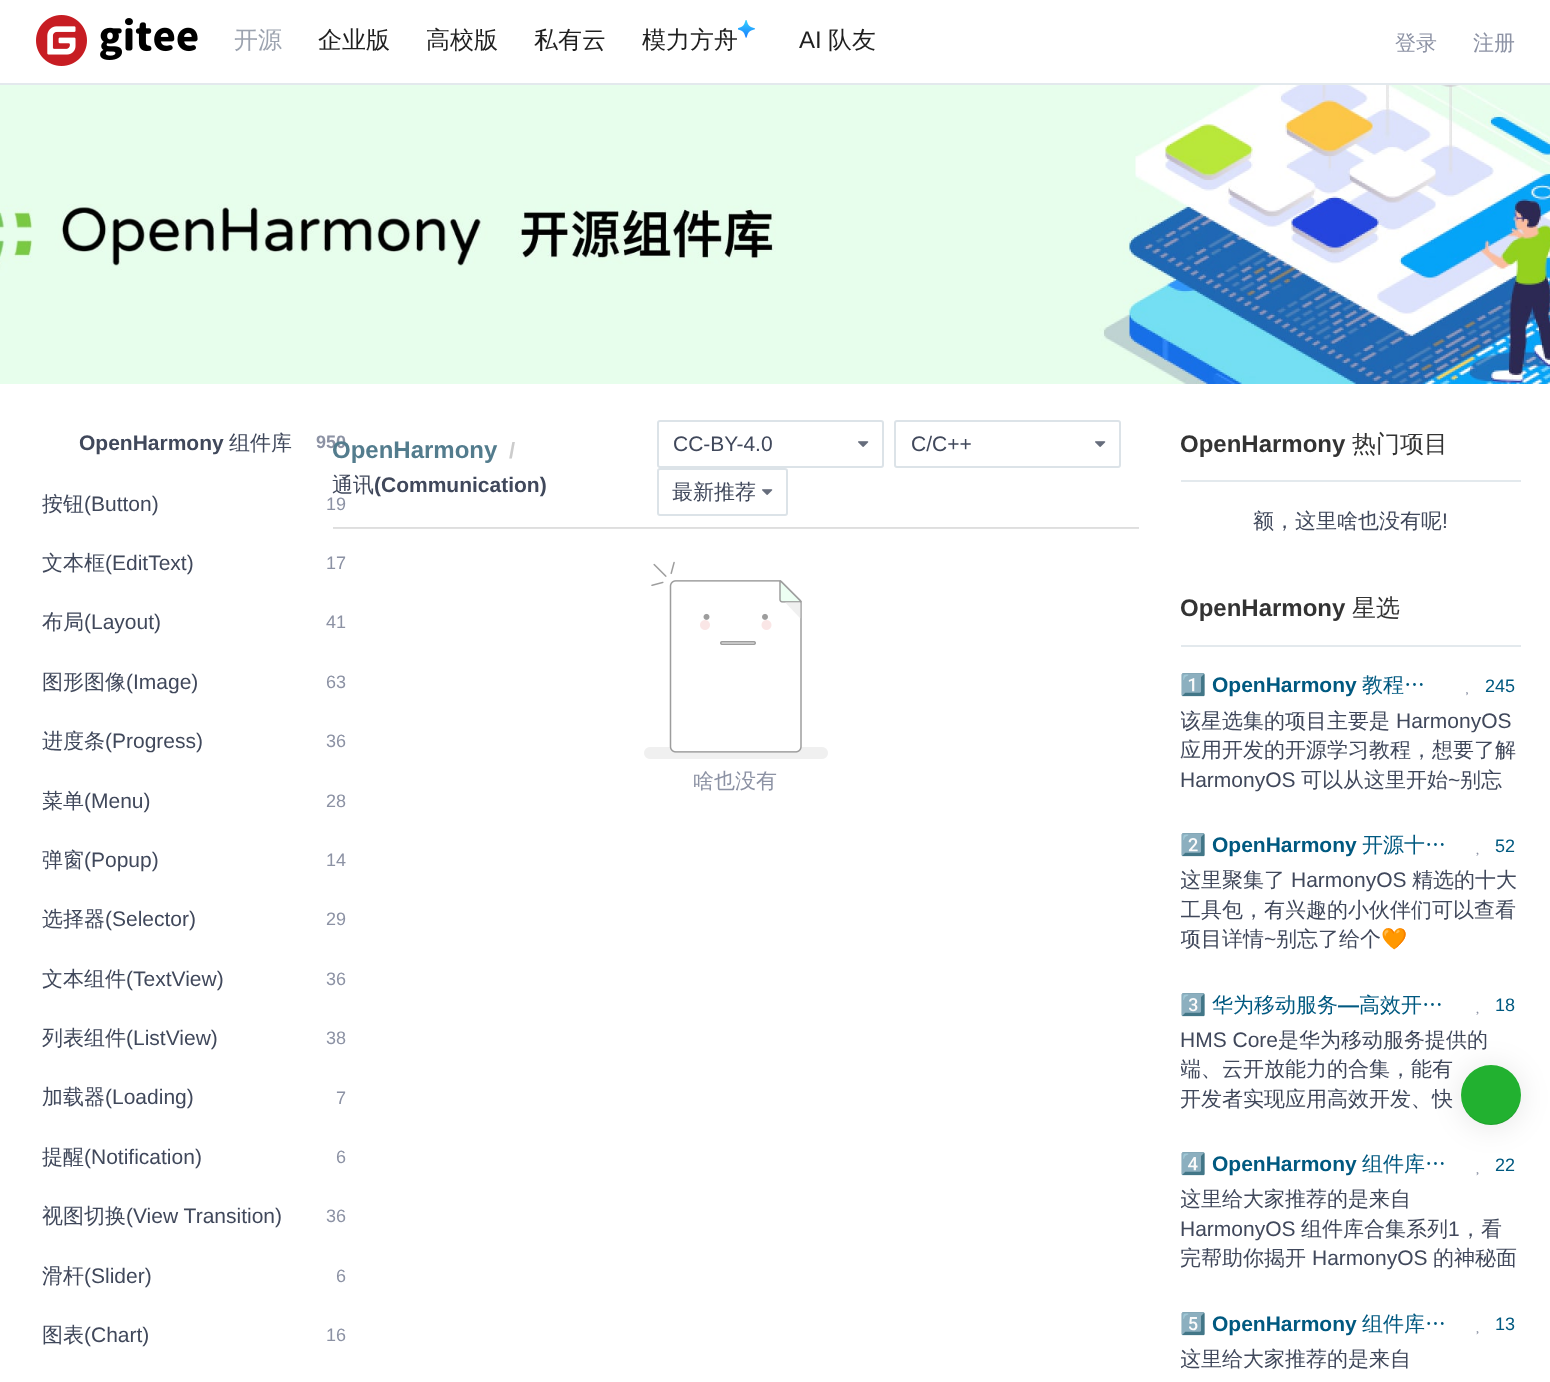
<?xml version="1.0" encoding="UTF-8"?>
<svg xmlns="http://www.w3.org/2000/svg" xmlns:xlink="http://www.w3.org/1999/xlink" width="1550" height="1382">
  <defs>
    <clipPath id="clip1"><rect x="1181" y="672" width="259" height="29" /></clipPath>
    <clipPath id="clip2"><rect x="1181" y="707" width="340" height="88" /></clipPath>
    <clipPath id="clip3"><rect x="1181" y="831" width="268" height="30" /></clipPath>
    <clipPath id="clip4"><rect x="1181" y="867" width="340" height="87" /></clipPath>
    <clipPath id="clip5"><rect x="1181" y="990" width="268" height="30" /></clipPath>
    <clipPath id="clip6"><rect x="1181" y="1026" width="340" height="89" /></clipPath>
    <clipPath id="clip7"><rect x="1181" y="1151" width="268" height="28" /></clipPath>
    <clipPath id="clip8"><rect x="1181" y="1185" width="340" height="89" /></clipPath>
    <clipPath id="clip9"><rect x="1181" y="1310" width="268" height="30" /></clipPath>
    <clipPath id="clip10"><rect x="1181" y="1346" width="340" height="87" /></clipPath>
  </defs>
  <rect width="100%" height="100%" fill="#ffffff" />
  <rect y="83" width="1550" height="2" fill="#e3e9ed" />
  <image x="36" y="15" width="162" height="51" xlink:href="image1.png" />
  <image x="738" y="20" width="18" height="18" xlink:href="image2.png" />
  <image x="0" y="85" width="1550" height="299" xlink:href="image3.png" />
  <rect x="658" y="421" width="225" height="46" rx="2" fill="none" stroke="#dce3e8" stroke-width="2" />
  <image x="858" y="441" width="11" height="6" xlink:href="image4.png" />
  <rect x="895" y="421" width="225" height="46" rx="2" fill="none" stroke="#dce3e8" stroke-width="2" />
  <image x="1095" y="441" width="11" height="6" xlink:href="image4.png" />
  <rect x="658" y="469" width="129" height="46" rx="2" fill="none" stroke="#dce3e8" stroke-width="2" />
  <image x="762" y="489" width="11" height="6" xlink:href="image4.png" />
  <rect x="333" y="527" width="806" height="1" fill="#dedede" />
  <rect x="333" y="528" width="806" height="1" fill="#e1e1e1" />
  <image x="644" y="561" width="184" height="198" xlink:href="image5.png" />
  <rect x="1181" y="480" width="340" height="2" fill="#e3e9ed" />
  <rect x="1181" y="645" width="340" height="2" fill="#e3e9ed" />
  <image x="1466" y="692" width="2" height="4" xlink:href="image6.png" />
  <image x="1476" y="852" width="3" height="4" xlink:href="image7.png" />
  <image x="1476" y="1011" width="3" height="4" xlink:href="image7.png" />
  <image x="1476" y="1172" width="3" height="4" xlink:href="image8.png" />
  <image x="1476" y="1331" width="3" height="4" xlink:href="image8.png" />
  <rect x="1461" y="1067" width="60" height="60" rx="30" fill="#000000" fill-opacity="0.1" filter="blur(15px)" />
  <circle cx="1491" cy="1095" r="30" fill="#22b130" />
  <path d="M 1461 1094 c 0 30 38 42 55 18 c 3 -5 5 -11 5 -18 c 0 16 -13 30 -30 30 c -17 0 -30 -14 -30 -30 z" fill="#000000" fill-opacity="0.1" />
  <text x="234" y="48" style="font-family: WenQuanYi Zen Hei; font-size: 24px; font-weight: 500; fill: #9ca3af">开源</text>
  <text x="318" y="48" style="font-family: WenQuanYi Zen Hei; font-size: 24px; font-weight: 500; fill: #1f1f1f">企业版</text>
  <text x="426" y="48" style="font-family: WenQuanYi Zen Hei; font-size: 24px; font-weight: 500; fill: #1f1f1f">高校版</text>
  <text x="534" y="48" style="font-family: WenQuanYi Zen Hei; font-size: 24px; font-weight: 500; fill: #1f1f1f">私有云</text>
  <text x="642" y="48" style="font-family: WenQuanYi Zen Hei; font-size: 24px; font-weight: 500; fill: #1f1f1f">模力方舟</text>
  <text x="799" y="48" style="font-family: Liberation Sans; font-size: 24px; fill: #1f1f1f">AI</text>
  <text x="828" y="48" style="font-family: WenQuanYi Zen Hei; font-size: 24px; font-weight: 500; fill: #1f1f1f">队友</text>
  <text x="1395" y="50" style="font-family: WenQuanYi Zen Hei; font-size: 21px; font-weight: 500; fill: #8c92a4">登录</text>
  <text x="1473" y="50" style="font-family: WenQuanYi Zen Hei; font-size: 21px; font-weight: 500; fill: #8c92a4">注册</text>
  <text x="79" y="450" style="font-family: Liberation Sans; font-size: 21px; font-weight: bold; fill: #40485b">OpenHarmony</text>
  <text x="229" y="450" style="font-family: WenQuanYi Zen Hei; font-size: 21px; font-weight: 500; fill: #40485b">组件库</text>
  <text x="316" y="448" style="font-family: Liberation Sans; font-size: 18px; font-weight: bold; fill: #8c92a4">950</text>
  <text x="42" y="511" style="font-family: WenQuanYi Zen Hei; font-size: 21px; font-weight: 500; fill: #40485b">按钮</text>
  <text x="84" y="511" style="font-family: Liberation Sans; font-size: 21px; fill: #40485b">(Button)</text>
  <text x="326" y="510" style="font-family: Liberation Sans; font-size: 18px; fill: #8c92a4">19</text>
  <text x="42" y="570" style="font-family: WenQuanYi Zen Hei; font-size: 21px; font-weight: 500; fill: #40485b">文本框</text>
  <text x="105" y="570" style="font-family: Liberation Sans; font-size: 21px; fill: #40485b">(EditText)</text>
  <text x="326" y="569" style="font-family: Liberation Sans; font-size: 18px; fill: #8c92a4">17</text>
  <text x="42" y="629" style="font-family: WenQuanYi Zen Hei; font-size: 21px; font-weight: 500; fill: #40485b">布局</text>
  <text x="84" y="629" style="font-family: Liberation Sans; font-size: 21px; fill: #40485b">(Layout)</text>
  <text x="326" y="628" style="font-family: Liberation Sans; font-size: 18px; fill: #8c92a4">41</text>
  <text x="42" y="689" style="font-family: WenQuanYi Zen Hei; font-size: 21px; font-weight: 500; fill: #40485b">图形图像</text>
  <text x="126" y="689" style="font-family: Liberation Sans; font-size: 21px; fill: #40485b">(Image)</text>
  <text x="326" y="688" style="font-family: Liberation Sans; font-size: 18px; fill: #8c92a4">63</text>
  <text x="42" y="748" style="font-family: WenQuanYi Zen Hei; font-size: 21px; font-weight: 500; fill: #40485b">进度条</text>
  <text x="105" y="748" style="font-family: Liberation Sans; font-size: 21px; fill: #40485b">(Progress)</text>
  <text x="326" y="747" style="font-family: Liberation Sans; font-size: 18px; fill: #8c92a4">36</text>
  <text x="42" y="808" style="font-family: WenQuanYi Zen Hei; font-size: 21px; font-weight: 500; fill: #40485b">菜单</text>
  <text x="84" y="808" style="font-family: Liberation Sans; font-size: 21px; fill: #40485b">(Menu)</text>
  <text x="326" y="807" style="font-family: Liberation Sans; font-size: 18px; fill: #8c92a4">28</text>
  <text x="42" y="867" style="font-family: WenQuanYi Zen Hei; font-size: 21px; font-weight: 500; fill: #40485b">弹窗</text>
  <text x="84" y="867" style="font-family: Liberation Sans; font-size: 21px; fill: #40485b">(Popup)</text>
  <text x="326" y="866" style="font-family: Liberation Sans; font-size: 18px; fill: #8c92a4">14</text>
  <text x="42" y="926" style="font-family: WenQuanYi Zen Hei; font-size: 21px; font-weight: 500; fill: #40485b">选择器</text>
  <text x="105" y="926" style="font-family: Liberation Sans; font-size: 21px; fill: #40485b">(Selector)</text>
  <text x="326" y="925" style="font-family: Liberation Sans; font-size: 18px; fill: #8c92a4">29</text>
  <text x="42" y="986" style="font-family: WenQuanYi Zen Hei; font-size: 21px; font-weight: 500; fill: #40485b">文本组件</text>
  <text x="126" y="986" style="font-family: Liberation Sans; font-size: 21px; fill: #40485b">(TextView)</text>
  <text x="326" y="985" style="font-family: Liberation Sans; font-size: 18px; fill: #8c92a4">36</text>
  <text x="42" y="1045" style="font-family: WenQuanYi Zen Hei; font-size: 21px; font-weight: 500; fill: #40485b">列表组件</text>
  <text x="126" y="1045" style="font-family: Liberation Sans; font-size: 21px; fill: #40485b">(ListView)</text>
  <text x="326" y="1044" style="font-family: Liberation Sans; font-size: 18px; fill: #8c92a4">38</text>
  <text x="42" y="1104" style="font-family: WenQuanYi Zen Hei; font-size: 21px; font-weight: 500; fill: #40485b">加载器</text>
  <text x="105" y="1104" style="font-family: Liberation Sans; font-size: 21px; fill: #40485b">(Loading)</text>
  <text x="336" y="1104" style="font-family: Liberation Sans; font-size: 18px; fill: #8c92a4">7</text>
  <text x="42" y="1164" style="font-family: WenQuanYi Zen Hei; font-size: 21px; font-weight: 500; fill: #40485b">提醒</text>
  <text x="84" y="1164" style="font-family: Liberation Sans; font-size: 21px; fill: #40485b">(Notification)</text>
  <text x="336" y="1163" style="font-family: Liberation Sans; font-size: 18px; fill: #8c92a4">6</text>
  <text x="42" y="1223" style="font-family: WenQuanYi Zen Hei; font-size: 21px; font-weight: 500; fill: #40485b">视图切换</text>
  <text x="126" y="1223" style="font-family: Liberation Sans; font-size: 21px; fill: #40485b">(View Transition)</text>
  <text x="326" y="1222" style="font-family: Liberation Sans; font-size: 18px; fill: #8c92a4">36</text>
  <text x="42" y="1283" style="font-family: WenQuanYi Zen Hei; font-size: 21px; font-weight: 500; fill: #40485b">滑杆</text>
  <text x="84" y="1283" style="font-family: Liberation Sans; font-size: 21px; fill: #40485b">(Slider)</text>
  <text x="336" y="1282" style="font-family: Liberation Sans; font-size: 18px; fill: #8c92a4">6</text>
  <text x="42" y="1342" style="font-family: WenQuanYi Zen Hei; font-size: 21px; font-weight: 500; fill: #40485b">图表</text>
  <text x="84" y="1342" style="font-family: Liberation Sans; font-size: 21px; fill: #40485b">(Chart)</text>
  <text x="326" y="1341" style="font-family: Liberation Sans; font-size: 18px; fill: #8c92a4">16</text>
  <text x="332" y="458" style="font-family: Liberation Sans; font-size: 24px; font-weight: bold; fill: #537c8d">OpenHarmony</text>
  <text x="509" y="458" style="font-family: Liberation Sans; font-size: 22px; font-weight: bold; fill: #cccccc">/</text>
  <text x="332" y="492" style="font-family: WenQuanYi Zen Hei; font-size: 21px; font-weight: 500; fill: #40485b">通讯</text>
  <text x="374" y="492" style="font-family: Liberation Sans; font-size: 21px; font-weight: bold; fill: #40485b">(Communication)</text>
  <text x="673" y="451" style="font-family: Liberation Sans; font-size: 21px; fill: #40485b">CC-BY-4.0</text>
  <text x="911" y="451" style="font-family: Liberation Sans; font-size: 21px; fill: #40485b">C/C++</text>
  <text x="672" y="499" style="font-family: WenQuanYi Zen Hei; font-size: 21px; font-weight: 500; fill: #40485b">最新推荐</text>
  <text x="693" y="788" style="font-family: WenQuanYi Zen Hei; font-size: 21px; font-weight: 500; fill: #8c92a4">啥也没有</text>
  <text x="1180" y="452" style="font-family: Liberation Sans; font-size: 24px; font-weight: bold; fill: #333333">OpenHarmony</text>
  <text x="1352" y="452" style="font-family: WenQuanYi Zen Hei; font-size: 24px; font-weight: 500; fill: #333333">热门项目</text>
  <text x="1253" y="528" style="font-family: WenQuanYi Zen Hei; font-size: 21px; font-weight: 500; fill: #40485b">额，这里啥也没有呢</text>
  <text x="1442" y="528" style="font-family: Liberation Sans; font-size: 21px; fill: #40485b">!</text>
  <text x="1180" y="616" style="font-family: Liberation Sans; font-size: 24px; font-weight: bold; fill: #333333">OpenHarmony</text>
  <text x="1352" y="616" style="font-family: WenQuanYi Zen Hei; font-size: 24px; font-weight: 500; fill: #333333">星选</text>
  <g clip-path="url(#clip1)">
    <text x="1180" y="692" style="font-family: Noto Color Emoji; font-size: 21px; font-weight: bold; fill: #005980">1️⃣</text>
  </g>
  <text x="1212" y="692" style="font-family: Liberation Sans; font-size: 21px; font-weight: bold; fill: #005980">OpenHarmony</text>
  <text x="1362" y="692" style="font-family: WenQuanYi Zen Hei; font-size: 21px; font-weight: 500; fill: #005980">教程…</text>
  <text x="1485" y="692" style="font-family: Liberation Sans; font-size: 18px; fill: #005980">245</text>
  <g clip-path="url(#clip2)">
    <text x="1180" y="728" style="font-family: WenQuanYi Zen Hei; font-size: 21px; font-weight: 500; fill: #40485b">该星选集的项目主要是</text>
  </g>
  <text x="1396" y="728" style="font-family: Liberation Sans; font-size: 21px; fill: #40485b">HarmonyOS</text>
  <text x="1180" y="757" style="font-family: WenQuanYi Zen Hei; font-size: 21px; font-weight: 500; fill: #40485b">应用开发的开源学习教程，想要了解</text>
  <text x="1180" y="787" style="font-family: Liberation Sans; font-size: 21px; fill: #40485b">HarmonyOS</text>
  <text x="1301" y="787" style="font-family: WenQuanYi Zen Hei; font-size: 21px; font-weight: 500; fill: #40485b">可以从这里开始</text>
  <text x="1448" y="787" style="font-family: Liberation Sans; font-size: 21px; fill: #40485b">~</text>
  <text x="1460" y="787" style="font-family: WenQuanYi Zen Hei; font-size: 21px; font-weight: 500; fill: #40485b">别忘</text>
  <g clip-path="url(#clip3)">
    <text x="1180" y="852" style="font-family: Noto Color Emoji; font-size: 21px; font-weight: bold; fill: #005980">2️⃣</text>
  </g>
  <text x="1212" y="852" style="font-family: Liberation Sans; font-size: 21px; font-weight: bold; fill: #005980">OpenHarmony</text>
  <text x="1362" y="852" style="font-family: WenQuanYi Zen Hei; font-size: 21px; font-weight: 500; fill: #005980">开源十…</text>
  <text x="1495" y="852" style="font-family: Liberation Sans; font-size: 18px; fill: #005980">52</text>
  <g clip-path="url(#clip4)">
    <text x="1180" y="887" style="font-family: WenQuanYi Zen Hei; font-size: 21px; font-weight: 500; fill: #40485b">这里聚集了</text>
  </g>
  <text x="1291" y="887" style="font-family: Liberation Sans; font-size: 21px; fill: #40485b">HarmonyOS</text>
  <text x="1412" y="887" style="font-family: WenQuanYi Zen Hei; font-size: 21px; font-weight: 500; fill: #40485b">精选的十大</text>
  <g clip-path="url(#clip4)">
    <text x="1180" y="917" style="font-family: WenQuanYi Zen Hei; font-size: 21px; font-weight: 500; fill: #40485b">工具包，有兴趣的小伙伴们可以查看</text>
    <text x="1180" y="946" style="font-family: WenQuanYi Zen Hei; font-size: 21px; font-weight: 500; fill: #40485b">项目详情</text>
  </g>
  <text x="1264" y="946" style="font-family: Liberation Sans; font-size: 21px; fill: #40485b">~</text>
  <text x="1276" y="946" style="font-family: WenQuanYi Zen Hei; font-size: 21px; font-weight: 500; fill: #40485b">别忘了给个</text>
  <text x="1381" y="946" style="font-family: Noto Color Emoji; font-size: 21px; fill: #40485b">🧡</text>
  <g clip-path="url(#clip5)">
    <text x="1180" y="1012" style="font-family: Noto Color Emoji; font-size: 21px; font-weight: bold; fill: #005980">3️⃣</text>
  </g>
  <text x="1212" y="1012" style="font-family: WenQuanYi Zen Hei; font-size: 21px; font-weight: 500; fill: #005980">华为移动服务</text>
  <text x="1338" y="1012" style="font-family: Liberation Sans; font-size: 21px; font-weight: bold; fill: #005980">—</text>
  <text x="1359" y="1012" style="font-family: WenQuanYi Zen Hei; font-size: 21px; font-weight: 500; fill: #005980">高效开…</text>
  <text x="1495" y="1011" style="font-family: Liberation Sans; font-size: 18px; fill: #005980">18</text>
  <text x="1180" y="1047" style="font-family: Liberation Sans; font-size: 21px; fill: #40485b">HMS Core</text>
  <text x="1278" y="1047" style="font-family: WenQuanYi Zen Hei; font-size: 21px; font-weight: 500; fill: #40485b">是华为移动服务提供的</text>
  <g clip-path="url(#clip6)">
    <text x="1180" y="1076" style="font-family: WenQuanYi Zen Hei; font-size: 21px; font-weight: 500; fill: #40485b">端、云开放能力的合集，能有</text>
    <text x="1180" y="1106" style="font-family: WenQuanYi Zen Hei; font-size: 21px; font-weight: 500; fill: #40485b">开发者实现应用高效开发、快</text>
  </g>
  <g clip-path="url(#clip7)">
    <text x="1180" y="1171" style="font-family: Noto Color Emoji; font-size: 21px; font-weight: bold; fill: #005980">4️⃣</text>
  </g>
  <text x="1212" y="1171" style="font-family: Liberation Sans; font-size: 21px; font-weight: bold; fill: #005980">OpenHarmony</text>
  <text x="1362" y="1171" style="font-family: WenQuanYi Zen Hei; font-size: 21px; font-weight: 500; fill: #005980">组件库…</text>
  <text x="1495" y="1171" style="font-family: Liberation Sans; font-size: 18px; fill: #005980">22</text>
  <g clip-path="url(#clip8)">
    <text x="1180" y="1206" style="font-family: WenQuanYi Zen Hei; font-size: 21px; font-weight: 500; fill: #40485b">这里给大家推荐的是来自</text>
  </g>
  <text x="1180" y="1236" style="font-family: Liberation Sans; font-size: 21px; fill: #40485b">HarmonyOS</text>
  <text x="1301" y="1236" style="font-family: WenQuanYi Zen Hei; font-size: 21px; font-weight: 500; fill: #40485b">组件库合集系列</text>
  <text x="1448" y="1236" style="font-family: Liberation Sans; font-size: 21px; fill: #40485b">1</text>
  <text x="1460" y="1236" style="font-family: WenQuanYi Zen Hei; font-size: 21px; font-weight: 500; fill: #40485b">，看</text>
  <text x="1180" y="1265" style="font-family: WenQuanYi Zen Hei; font-size: 21px; font-weight: 500; fill: #40485b">完帮助你揭开</text>
  <text x="1312" y="1265" style="font-family: Liberation Sans; font-size: 21px; fill: #40485b">HarmonyOS</text>
  <text x="1433" y="1265" style="font-family: WenQuanYi Zen Hei; font-size: 21px; font-weight: 500; fill: #40485b">的神秘面</text>
  <g clip-path="url(#clip9)">
    <text x="1180" y="1331" style="font-family: Noto Color Emoji; font-size: 21px; font-weight: bold; fill: #005980">5️⃣</text>
  </g>
  <text x="1212" y="1331" style="font-family: Liberation Sans; font-size: 21px; font-weight: bold; fill: #005980">OpenHarmony</text>
  <text x="1362" y="1331" style="font-family: WenQuanYi Zen Hei; font-size: 21px; font-weight: 500; fill: #005980">组件库…</text>
  <text x="1495" y="1330" style="font-family: Liberation Sans; font-size: 18px; fill: #005980">13</text>
  <g clip-path="url(#clip10)">
    <text x="1180" y="1366" style="font-family: WenQuanYi Zen Hei; font-size: 21px; font-weight: 500; fill: #40485b">这里给大家推荐的是来自</text>
  </g>
</svg>
